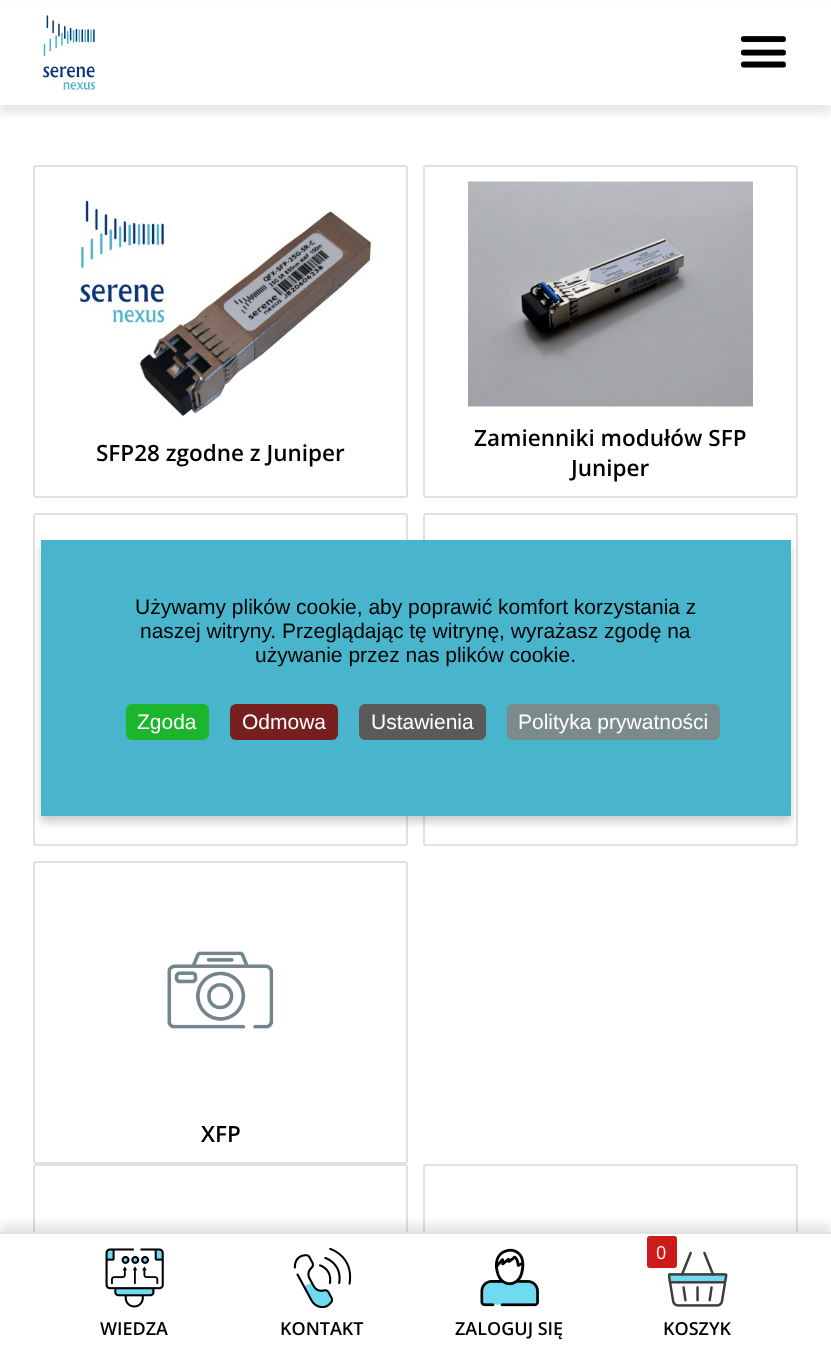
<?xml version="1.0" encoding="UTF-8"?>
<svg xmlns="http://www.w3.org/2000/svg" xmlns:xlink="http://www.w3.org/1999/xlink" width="831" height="1356">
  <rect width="100%" height="100%" fill="#ffffff" />
  <rect y="8" width="831" height="105" fill="#000000" fill-opacity="0.1" filter="blur(4px)" />
  <rect y="3" width="831" height="102" fill="#ffffff" />
  <image x="43" y="15" width="52" height="75" xlink:href="image1.png" />
  <image x="741" y="36" width="45" height="32" xlink:href="image2.png" />
  <rect x="34" y="166" width="373" height="331" rx="2" fill="none" stroke="#e1e1e1" stroke-width="2" />
  <image x="79" y="196" width="293" height="221" xlink:href="image3.png" />
  <rect x="424" y="166" width="373" height="331" rx="2" fill="none" stroke="#e1e1e1" stroke-width="2" />
  <image x="468" y="181" width="285" height="226" xlink:href="image4.png" />
  <rect x="34" y="514" width="373" height="331" rx="2" fill="none" stroke="#e1e1e1" stroke-width="2" />
  <rect x="424" y="514" width="373" height="331" rx="2" fill="none" stroke="#e1e1e1" stroke-width="2" />
  <rect x="34" y="862" width="373" height="301" rx="2" fill="none" stroke="#e1e1e1" stroke-width="2" />
  <image x="167" y="951" width="107" height="78" xlink:href="image5.png" />
  <rect x="34" y="1165" width="373" height="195" rx="2" fill="none" stroke="#e1e1e1" stroke-width="2" />
  <rect x="424" y="1165" width="373" height="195" rx="2" fill="none" stroke="#e1e1e1" stroke-width="2" />
  <rect x="41" y="546" width="750" height="276" fill="#000000" fill-opacity="0.2" filter="blur(4.5px)" />
  <rect x="41" y="540" width="750" height="276" fill="#48b5cd" />
  <rect x="126" y="704" width="83" height="36" rx="6" fill="#1db42e" />
  <rect x="230" y="704" width="108" height="36" rx="6" fill="#771f1f" />
  <rect x="359" y="704" width="127" height="36" rx="6" fill="#5a5a5a" />
  <rect x="507" y="704" width="213" height="36" rx="6" fill="#7b8a8b" />
  <rect y="1224" width="831" height="125" fill="#000000" fill-opacity="0.1" filter="blur(4px)" />
  <rect y="1234" width="831" height="122" fill="#ffffff" />
  <rect y="1232" width="831" height="2" fill="#e1e1e1" />
  <image x="105" y="1248" width="59" height="60" xlink:href="image6.png" />
  <image x="293" y="1248" width="59" height="60" xlink:href="image7.png" />
  <image x="480" y="1248" width="59" height="59" xlink:href="image8.png" />
  <image x="668" y="1251" width="60" height="56" xlink:href="image9.png" />
  <rect x="647" y="1236" width="30" height="32" rx="3" fill="#cd1b1b" />
  <text x="96" y="461" style="font-family: Open Sans; font-size: 22.5px; font-weight: 600; fill: #000000">SFP28 zgodne z Juniper</text>
  <text x="474" y="446" style="font-family: Open Sans; font-size: 22.5px; font-weight: 600; fill: #000000">Zamienniki modułów SFP</text>
  <text x="571" y="476" style="font-family: Open Sans; font-size: 22.5px; font-weight: 600; fill: #000000">Juniper</text>
  <text x="201" y="1142" style="font-family: Open Sans; font-size: 22.5px; font-weight: 600; fill: #000000">XFP</text>
  <text x="135" y="614" style="font-family: Liberation Sans; font-size: 21px; fill: #000000">Używamy plików cookie, aby poprawić komfort korzystania z</text>
  <text x="140" y="638" style="font-family: Liberation Sans; font-size: 21px; fill: #000000">naszej witryny. Przeglądając tę witrynę, wyrażasz zgodę na</text>
  <text x="255" y="662" style="font-family: Liberation Sans; font-size: 21px; fill: #000000">używanie przez nas plików cookie.</text>
  <text x="137" y="729" style="font-family: Liberation Sans; font-size: 21px; fill: #ffffff">Zgoda</text>
  <text x="242" y="729" style="font-family: Liberation Sans; font-size: 21px; fill: #ffffff">Odmowa</text>
  <text x="371" y="729" style="font-family: Liberation Sans; font-size: 21px; fill: #ffffff">Ustawienia</text>
  <text x="518" y="729" style="font-family: Liberation Sans; font-size: 21px; fill: #ffffff">Polityka prywatności</text>
  <text x="100" y="1335" style="font-family: Open Sans; font-size: 18px; font-weight: 600; fill: #000000">WIEDZA</text>
  <text x="280" y="1335" style="font-family: Open Sans; font-size: 18px; font-weight: 600; fill: #000000">KONTAKT</text>
  <text x="455" y="1335" style="font-family: Open Sans; font-size: 18px; font-weight: 600; fill: #000000">ZALOGUJ SIĘ</text>
  <text x="656" y="1259" style="font-family: Open Sans; font-size: 18px; fill: #ffffff">0</text>
  <text x="663" y="1335" style="font-family: Open Sans; font-size: 18px; font-weight: 600; fill: #000000">KOSZYK</text>
</svg>
